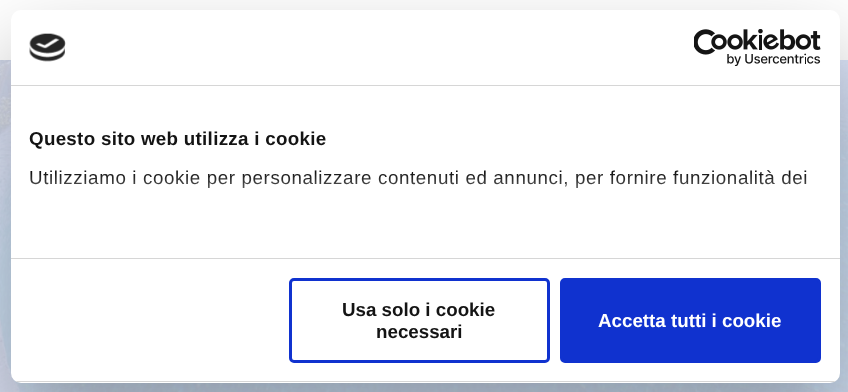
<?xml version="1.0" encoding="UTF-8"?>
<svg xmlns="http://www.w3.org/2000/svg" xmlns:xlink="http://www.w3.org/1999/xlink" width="848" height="392">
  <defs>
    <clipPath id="clip1"><rect x="11" y="10" width="829" height="373" rx="10" /></clipPath>
    <linearGradient id="g1" gradientUnits="userSpaceOnUse" x1="417" y1="258" x2="417" y2="173"><stop offset="0" stop-color="#ffffff" /><stop offset="0.5" stop-color="#ffffff" stop-opacity="0.8" /><stop offset="1" stop-color="#ffffff" stop-opacity="0" /></linearGradient>
  </defs>
  <rect width="100%" height="100%" fill="#ffffff" />
  <image x="0" y="60" width="848" height="332" xlink:href="image1.png" />
  <rect x="11" y="50" width="829" height="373" rx="10" fill="#000000" fill-opacity="0.3" filter="blur(42.5px)" />
  <rect x="11" y="10" width="829" height="373" rx="10" fill="#ffffff" />
  <rect x="11" y="85" width="829" height="1" fill="#d6d6d6" />
  <image x="29" y="33" width="37" height="29" xlink:href="image2.png" />
  <image x="694" y="29" width="127" height="37" xlink:href="image3.png" />
  <rect x="11" y="258" width="829" height="1" fill="#d6d6d6" />
  <g clip-path="url(#clip1)">
    <rect x="11" y="381" width="829" height="1" fill="#d6d6d6" />
  </g>
  <rect x="290.5" y="279.5" width="258" height="82" rx="3.5" fill="none" stroke="#1032cf" stroke-width="3" />
  <rect x="561.5" y="279.5" width="258" height="82" rx="3.5" fill="#1032cf" stroke="#1032cf" stroke-width="3" />
  <text x="29" y="145" style="font-family: Liberation Sans; font-size: 18.75px; font-weight: bold; letter-spacing: 0.3px; fill: #141414">Questo sito web utilizza i cookie</text>
  <text x="29" y="184" style="font-family: Liberation Sans; font-size: 18.75px; letter-spacing: 0.62px; fill: #141414">Utilizziamo i cookie per personalizzare contenuti ed annunci, per fornire funzionalità dei</text>
  <rect x="30" y="174" width="777" height="14" fill="url(#g1)" />
  <text x="342" y="316" style="font-family: Liberation Sans; font-size: 18.75px; font-weight: bold; fill: #141414">Usa solo i cookie</text>
  <text x="376" y="338" style="font-family: Liberation Sans; font-size: 18.75px; font-weight: bold; fill: #141414">necessari</text>
  <text x="598" y="327" style="font-family: Liberation Sans; font-size: 18.75px; font-weight: bold; fill: #ffffff">Accetta tutti i cookie</text>
</svg>
